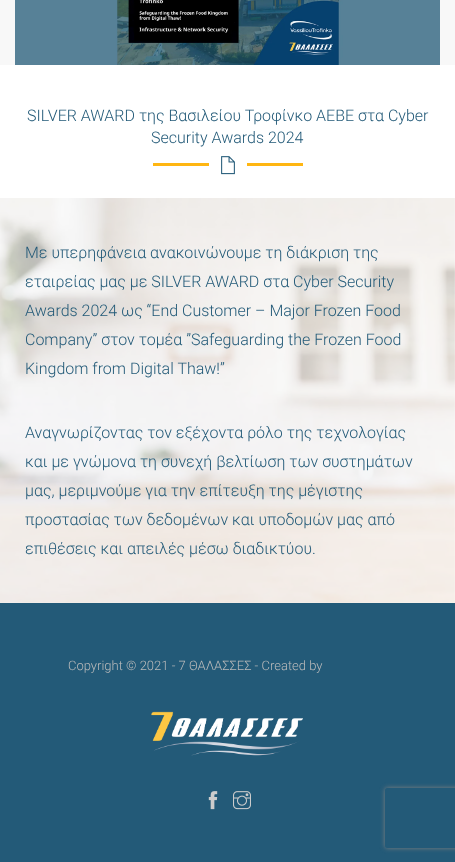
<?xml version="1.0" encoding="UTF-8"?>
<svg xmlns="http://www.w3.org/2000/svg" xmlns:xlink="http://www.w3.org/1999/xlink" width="455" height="862">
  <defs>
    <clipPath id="clip1"><path d="M 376 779 h 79 v 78 h -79 z m 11 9 h 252 c 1 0 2 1 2 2 v 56 c 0 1 -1 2 -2 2 h -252 c -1 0 -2 -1 -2 -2 v -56 c 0 -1 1 -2 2 -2 z" clip-rule="evenodd" /></clipPath>
  </defs>
  <rect width="100%" height="100%" fill="#f8f8f8" />
  <image x="15" y="0" width="425" height="65" xlink:href="image1.png" />
  <rect y="65" width="455" height="133" fill="#ffffff" />
  <rect x="153" y="163" width="150" height="3" fill="#ffb612" />
  <rect x="209" y="163" width="38" height="3" fill="#ffffff" />
  <image x="221" y="156" width="14" height="19" xlink:href="image2.png" />
  <image x="0" y="198" width="455" height="405" xlink:href="image3.png" />
  <rect y="603" width="455" height="259" fill="#235a78" />
  <image x="151" y="711" width="152" height="45" xlink:href="image4.png" />
  <image x="208" y="791" width="10" height="19" xlink:href="image5.png" />
  <image x="233" y="791" width="18" height="19" xlink:href="image6.png" />
  <g clip-path="url(#clip1)">
    <rect x="385" y="788" width="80" height="60" rx="2" fill="#808080" filter="blur(2.5px)" />
  </g>
  <text x="27" y="121" style="font-family: Roboto; font-size: 16px; font-weight: 300; fill: #235a78">SILVER AWARD της Βασιλείου Τροφίνκο ΑΕΒΕ στα Cyber</text>
  <text x="151" y="143" style="font-family: Roboto; font-size: 16px; font-weight: 300; fill: #235a78">Security Awards 2024</text>
  <text x="25" y="258" style="font-family: Roboto; font-size: 16px; font-weight: 300; fill: #235a78">Με υπερηφάνεια ανακοινώνουμε τη διάκριση της</text>
  <text x="25" y="287" style="font-family: Roboto; font-size: 16px; font-weight: 300; fill: #235a78">εταιρείας μας με SILVER AWARD στα Cyber Security</text>
  <text x="25" y="316" style="font-family: Roboto; font-size: 16px; font-weight: 300; fill: #235a78">Awards 2024 ως “End Customer – Major Frozen Food</text>
  <text x="25" y="345" style="font-family: Roboto; font-size: 16px; font-weight: 300; fill: #235a78">Company” στον τομέα ”Safeguarding the Frozen Food</text>
  <text x="25" y="374" style="font-family: Roboto; font-size: 16px; font-weight: 300; fill: #235a78">Kingdom from Digital Thaw!”</text>
  <text x="25" y="438" style="font-family: Roboto; font-size: 16px; font-weight: 300; fill: #235a78">Αναγνωρίζοντας τον εξέχοντα ρόλο της τεχνολογίας</text>
  <text x="25" y="467" style="font-family: Roboto; font-size: 16px; font-weight: 300; fill: #235a78">και με γνώμονα τη συνεχή βελτίωση των συστημάτων</text>
  <text x="25" y="496" style="font-family: Roboto; font-size: 16px; font-weight: 300; fill: #235a78">μας, μεριμνούμε για την επίτευξη της μέγιστης</text>
  <text x="25" y="525" style="font-family: Roboto; font-size: 16px; font-weight: 300; fill: #235a78">προστασίας των δεδομένων και υποδομών μας από</text>
  <text x="25" y="554" style="font-family: Roboto; font-size: 16px; font-weight: 300; fill: #235a78">επιθέσεις και απειλές μέσω διαδικτύου.</text>
  <text x="68" y="670" style="font-family: Roboto; font-size: 13px; font-weight: 300; fill: #bbbbbb">Copyright © 2021 - 7 ΘΑΛΑΣΣΕΣ - Created by</text>
</svg>
